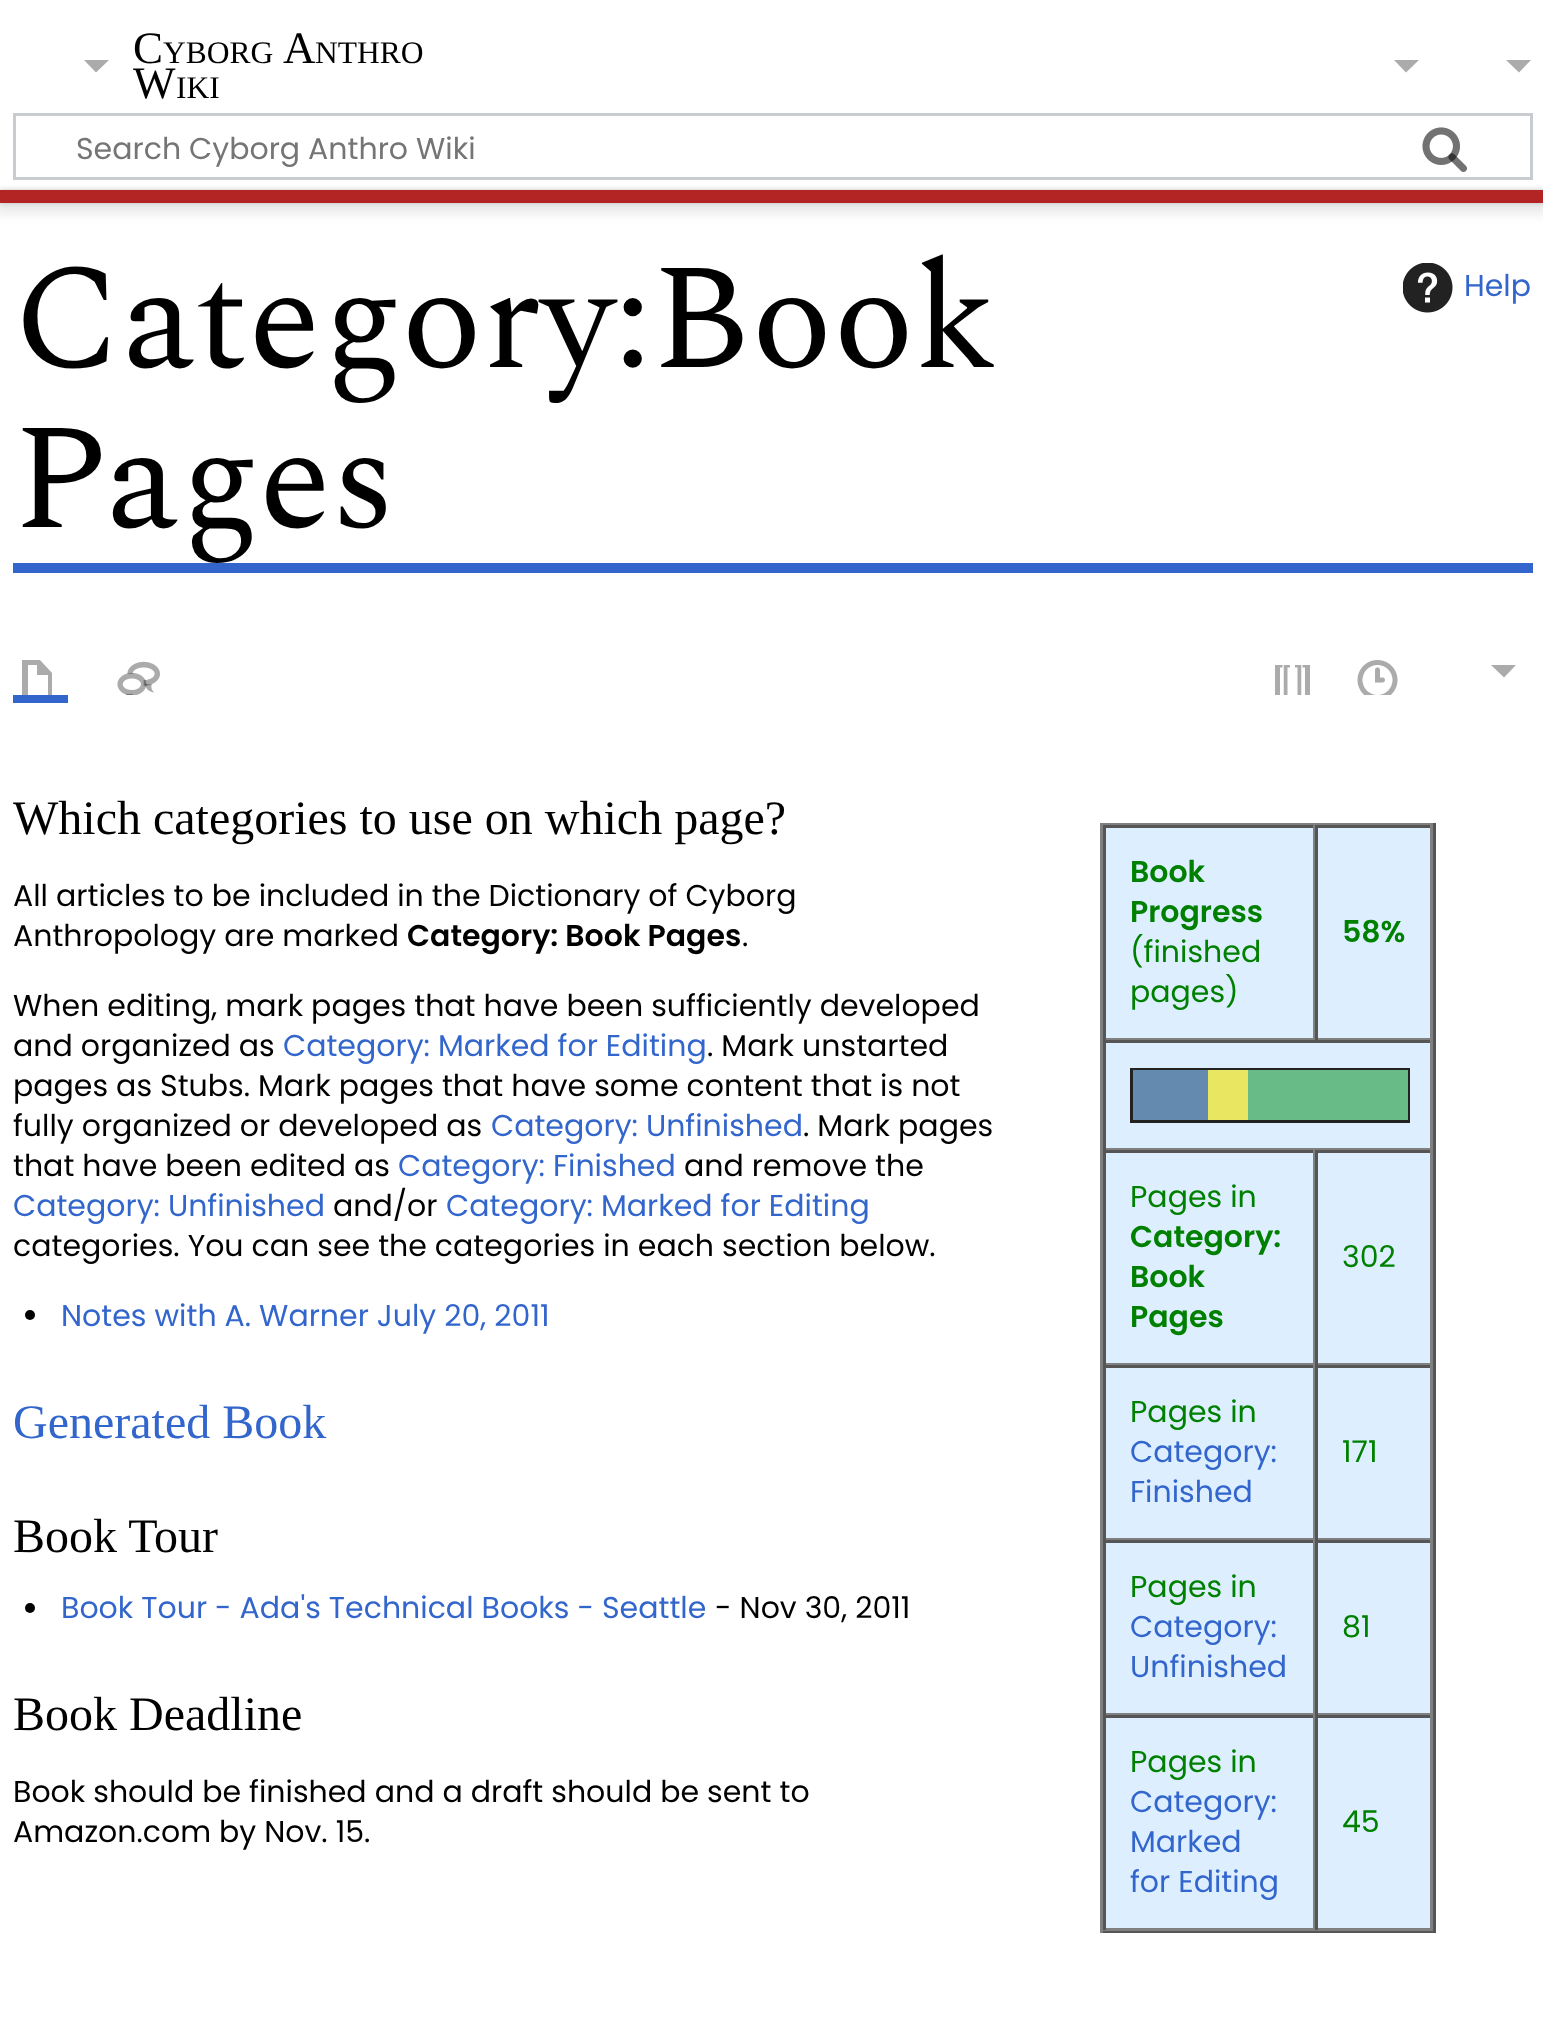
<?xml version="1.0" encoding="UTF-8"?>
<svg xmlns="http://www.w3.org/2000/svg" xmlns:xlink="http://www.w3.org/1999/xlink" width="1543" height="2018">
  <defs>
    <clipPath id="clip1"><rect x="13" y="655" width="50" height="40" /></clipPath>
  </defs>
  <rect width="100%" height="100%" fill="#ffffff" />
  <path d="M 1531 60 l -12 12.5 l -13 -12.5 z" fill="#ababab" />
  <rect x="14.5" y="114.5" width="1517" height="64" fill="none" stroke="#c8ccd1" stroke-width="3" />
  <image x="1422" y="127" width="45" height="45" xlink:href="image1.png" />
  <image x="1422" y="127" width="45" height="45" xlink:href="image2.png" />
  <rect y="190" width="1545" height="13" fill="#000000" fill-opacity="0.2" filter="blur(2.5px)" />
  <rect x="-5" y="193" width="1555" height="22" fill="#000000" fill-opacity="0.07" filter="blur(4px)" />
  <rect y="190" width="1543" height="13" fill="#b32424" />
  <path d="M 109 60 l -13 12.5 l -12 -12.5 z" fill="#ababab" />
  <path d="M 1419 60 l -13 12.5 l -12 -12.5 z" fill="#ababab" />
  <rect x="13" y="563" width="1520" height="10" fill="#3366cc" />
  <image x="1403" y="263" width="50" height="50" xlink:href="image3.png" />
  <rect x="13" y="695" width="55" height="8" fill="#3366cc" />
  <g clip-path="url(#clip1)">
    <path d="M 22 660 v 40 h 30 v -27 l -12 -13 z m 6 5 h 9 v 10 h 11 v 20 h -20 z" fill="#ababab" />
  </g>
  <image x="117" y="661" width="43" height="34" xlink:href="image4.png" />
  <image x="1275" y="665" width="35" height="30" xlink:href="image5.png" />
  <image x="1357" y="660" width="41" height="35" xlink:href="image6.png" />
  <path d="M 1516 665 l -12 12.5 l -13 -12.5 z" fill="#ababab" />
  <rect x="1106" y="828" width="324" height="1100" fill="#ddeeff" />
  <rect x="1100" y="823" width="335" height="2" fill="#808080" />
  <rect x="1433" y="823" width="3" height="1110" fill="#555555" />
  <rect x="1100" y="1930" width="335" height="3" fill="#555555" />
  <rect x="1100" y="823" width="3" height="1110" fill="#808080" />
  <rect x="1103" y="825" width="330" height="3" fill="#555555" />
  <rect x="1313" y="825" width="2" height="215" fill="#808080" />
  <rect x="1103" y="1038" width="212" height="2" fill="#808080" />
  <rect x="1103" y="825" width="3" height="215" fill="#555555" />
  <rect x="1430" y="825" width="3" height="215" fill="#808080" />
  <rect x="1315" y="1038" width="118" height="2" fill="#808080" />
  <rect x="1315" y="825" width="3" height="215" fill="#555555" />
  <rect x="1103" y="1040" width="330" height="3" fill="#555555" />
  <rect x="1430" y="1040" width="3" height="110" fill="#808080" />
  <rect x="1103" y="1148" width="330" height="2" fill="#808080" />
  <rect x="1103" y="1040" width="3" height="110" fill="#555555" />
  <rect x="1131.5" y="1069.5" width="277" height="52" fill="none" stroke="#222222" stroke-width="3" />
  <rect x="1133" y="1070" width="75" height="50" fill="#658aaf" />
  <rect x="1208" y="1070" width="40" height="50" fill="#e9e762" />
  <rect x="1248" y="1070" width="160" height="50" fill="#68bb87" />
  <rect x="1103" y="1150" width="330" height="3" fill="#555555" />
  <rect x="1313" y="1150" width="2" height="215" fill="#808080" />
  <rect x="1103" y="1363" width="212" height="2" fill="#808080" />
  <rect x="1103" y="1150" width="3" height="215" fill="#555555" />
  <rect x="1430" y="1150" width="3" height="215" fill="#808080" />
  <rect x="1315" y="1363" width="118" height="2" fill="#808080" />
  <rect x="1315" y="1150" width="3" height="215" fill="#555555" />
  <rect x="1103" y="1365" width="330" height="3" fill="#555555" />
  <rect x="1313" y="1365" width="2" height="175" fill="#808080" />
  <rect x="1103" y="1538" width="212" height="2" fill="#808080" />
  <rect x="1103" y="1365" width="3" height="175" fill="#555555" />
  <rect x="1430" y="1365" width="3" height="175" fill="#808080" />
  <rect x="1315" y="1538" width="118" height="2" fill="#808080" />
  <rect x="1315" y="1365" width="3" height="175" fill="#555555" />
  <rect x="1103" y="1540" width="330" height="3" fill="#555555" />
  <rect x="1313" y="1540" width="2" height="175" fill="#808080" />
  <rect x="1103" y="1713" width="212" height="2" fill="#808080" />
  <rect x="1103" y="1540" width="3" height="175" fill="#555555" />
  <rect x="1430" y="1540" width="3" height="175" fill="#808080" />
  <rect x="1315" y="1713" width="118" height="2" fill="#808080" />
  <rect x="1315" y="1540" width="3" height="175" fill="#555555" />
  <rect x="1103" y="1715" width="330" height="3" fill="#555555" />
  <rect x="1313" y="1715" width="2" height="215" fill="#808080" />
  <rect x="1103" y="1928" width="212" height="3" fill="#808080" />
  <rect x="1103" y="1715" width="3" height="215" fill="#555555" />
  <rect x="1430" y="1715" width="3" height="215" fill="#808080" />
  <rect x="1315" y="1928" width="118" height="3" fill="#808080" />
  <rect x="1315" y="1715" width="3" height="215" fill="#555555" />
  <circle cx="30" cy="1315" r="5" fill="#000000" />
  <circle cx="30" cy="1608" r="5" fill="#000000" />
  <text x="133" y="63" style="font-family: Liberation Serif; font-size: 45px; fill: #000000">C</text>
  <text x="163" y="63" style="font-family: Liberation Serif; font-size: 31.5px; fill: #000000">YBORG</text>
  <text x="283" y="63" style="font-family: Liberation Serif; font-size: 45px; fill: #000000">A</text>
  <text x="315" y="63" style="font-family: Liberation Serif; font-size: 31.5px; fill: #000000">NTHRO</text>
  <text x="133" y="98" style="font-family: Liberation Serif; font-size: 45px; fill: #000000">W</text>
  <text x="176" y="98" style="font-family: Liberation Serif; font-size: 31.5px; fill: #000000">IKI</text>
  <text x="76" y="159" style="font-family: Poppins; font-size: 30px; fill: #757575">Search Cyborg Anthro Wiki</text>
  <text x="13" y="367" style="font-family: Spectral; font-size: 150px; fill: #000000">Category:Book</text>
  <text x="13" y="527" style="font-family: Spectral; font-size: 150px; fill: #000000">Pages</text>
  <text x="1464" y="296" style="font-family: Poppins; font-size: 30px; fill: #3366cc">Help</text>
  <text x="13" y="834" style="font-family: Liberation Serif; font-size: 48px; fill: #000000">Which categories to use on which page?</text>
  <text x="13" y="906" style="font-family: Poppins; font-size: 30px; fill: #000000">All articles to be included in the Dictionary of Cyborg</text>
  <text x="13" y="946" style="font-family: Poppins; font-size: 30px; fill: #000000">Anthropology are marked</text>
  <text x="407" y="946" style="font-family: Poppins; font-size: 30px; font-weight: 600; fill: #000000">Category: Book Pages</text>
  <text x="742" y="946" style="font-family: Poppins; font-size: 30px; fill: #000000">.</text>
  <text x="1130" y="882" style="font-family: Poppins; font-size: 30px; font-weight: 600; fill: #008000">Book</text>
  <text x="1130" y="922" style="font-family: Poppins; font-size: 30px; font-weight: 600; fill: #008000">Progress</text>
  <text x="1130" y="962" style="font-family: Poppins; font-size: 30px; fill: #008000">(finished</text>
  <text x="1130" y="1002" style="font-family: Poppins; font-size: 30px; fill: #008000">pages)</text>
  <text x="1342" y="942" style="font-family: Poppins; font-size: 30px; font-weight: 600; fill: #008000">58%</text>
  <text x="1130" y="1207" style="font-family: Poppins; font-size: 30px; fill: #008000">Pages in</text>
  <text x="1130" y="1247" style="font-family: Poppins; font-size: 30px; font-weight: 600; fill: #008000">Category:</text>
  <text x="1130" y="1287" style="font-family: Poppins; font-size: 30px; font-weight: 600; fill: #008000">Book</text>
  <text x="1130" y="1327" style="font-family: Poppins; font-size: 30px; font-weight: 600; fill: #008000">Pages</text>
  <text x="1342" y="1267" style="font-family: Poppins; font-size: 30px; fill: #008000">302</text>
  <text x="1130" y="1422" style="font-family: Poppins; font-size: 30px; fill: #008000">Pages in</text>
  <text x="1130" y="1462" style="font-family: Poppins; font-size: 30px; fill: #3366cc">Category:</text>
  <text x="1130" y="1502" style="font-family: Poppins; font-size: 30px; fill: #3366cc">Finished</text>
  <text x="1342" y="1462" style="font-family: Poppins; font-size: 30px; fill: #008000">171</text>
  <text x="1130" y="1597" style="font-family: Poppins; font-size: 30px; fill: #008000">Pages in</text>
  <text x="1130" y="1637" style="font-family: Poppins; font-size: 30px; fill: #3366cc">Category:</text>
  <text x="1130" y="1677" style="font-family: Poppins; font-size: 30px; fill: #3366cc">Unfinished</text>
  <text x="1342" y="1637" style="font-family: Poppins; font-size: 30px; fill: #008000">81</text>
  <text x="1130" y="1772" style="font-family: Poppins; font-size: 30px; fill: #008000">Pages in</text>
  <text x="1130" y="1812" style="font-family: Poppins; font-size: 30px; fill: #3366cc">Category:</text>
  <text x="1130" y="1852" style="font-family: Poppins; font-size: 30px; fill: #3366cc">Marked</text>
  <text x="1130" y="1892" style="font-family: Poppins; font-size: 30px; fill: #3366cc">for Editing</text>
  <text x="1342" y="1832" style="font-family: Poppins; font-size: 30px; fill: #008000">45</text>
  <text x="13" y="1016" style="font-family: Poppins; font-size: 30px; fill: #000000">When editing, mark pages that have been sufficiently developed</text>
  <text x="13" y="1056" style="font-family: Poppins; font-size: 30px; fill: #000000">and organized as</text>
  <text x="283" y="1056" style="font-family: Poppins; font-size: 30px; fill: #3366cc">Category: Marked for Editing</text>
  <text x="707" y="1056" style="font-family: Poppins; font-size: 30px; fill: #000000">. Mark unstarted</text>
  <text x="13" y="1096" style="font-family: Poppins; font-size: 30px; fill: #000000">pages as Stubs. Mark pages that have some content that is not</text>
  <text x="13" y="1136" style="font-family: Poppins; font-size: 30px; fill: #000000">fully organized or developed as</text>
  <text x="491" y="1136" style="font-family: Poppins; font-size: 30px; fill: #3366cc">Category: Unfinished</text>
  <text x="803" y="1136" style="font-family: Poppins; font-size: 30px; fill: #000000">. Mark pages</text>
  <text x="13" y="1176" style="font-family: Poppins; font-size: 30px; fill: #000000">that have been edited as</text>
  <text x="398" y="1176" style="font-family: Poppins; font-size: 30px; fill: #3366cc">Category: Finished</text>
  <text x="684" y="1176" style="font-family: Poppins; font-size: 30px; fill: #000000">and remove the</text>
  <text x="13" y="1216" style="font-family: Poppins; font-size: 30px; fill: #3366cc">Category: Unfinished</text>
  <text x="333" y="1216" style="font-family: Poppins; font-size: 30px; fill: #000000">and/or</text>
  <text x="446" y="1216" style="font-family: Poppins; font-size: 30px; fill: #3366cc">Category: Marked for Editing</text>
  <text x="13" y="1256" style="font-family: Poppins; font-size: 30px; fill: #000000">categories. You can see the categories in each section below.</text>
  <text x="61" y="1326" style="font-family: Poppins; font-size: 30px; fill: #3366cc">Notes with A. Warner July 20, 2011</text>
  <text x="13" y="1438" style="font-family: Liberation Serif; font-size: 48px; fill: #3366cc">Generated Book</text>
  <text x="13" y="1552" style="font-family: Liberation Serif; font-size: 48px; fill: #000000">Book Tour</text>
  <text x="61" y="1618" style="font-family: Poppins; font-size: 30px; fill: #3366cc">Book Tour - Ada's Technical Books - Seattle</text>
  <text x="715" y="1618" style="font-family: Poppins; font-size: 30px; fill: #000000">- Nov 30, 2011</text>
  <text x="13" y="1730" style="font-family: Liberation Serif; font-size: 48px; fill: #000000">Book Deadline</text>
  <text x="13" y="1802" style="font-family: Poppins; font-size: 30px; fill: #000000">Book should be finished and a draft should be sent to</text>
  <text x="13" y="1842" style="font-family: Poppins; font-size: 30px; fill: #000000">Amazon.com by Nov. 15.</text>
</svg>
